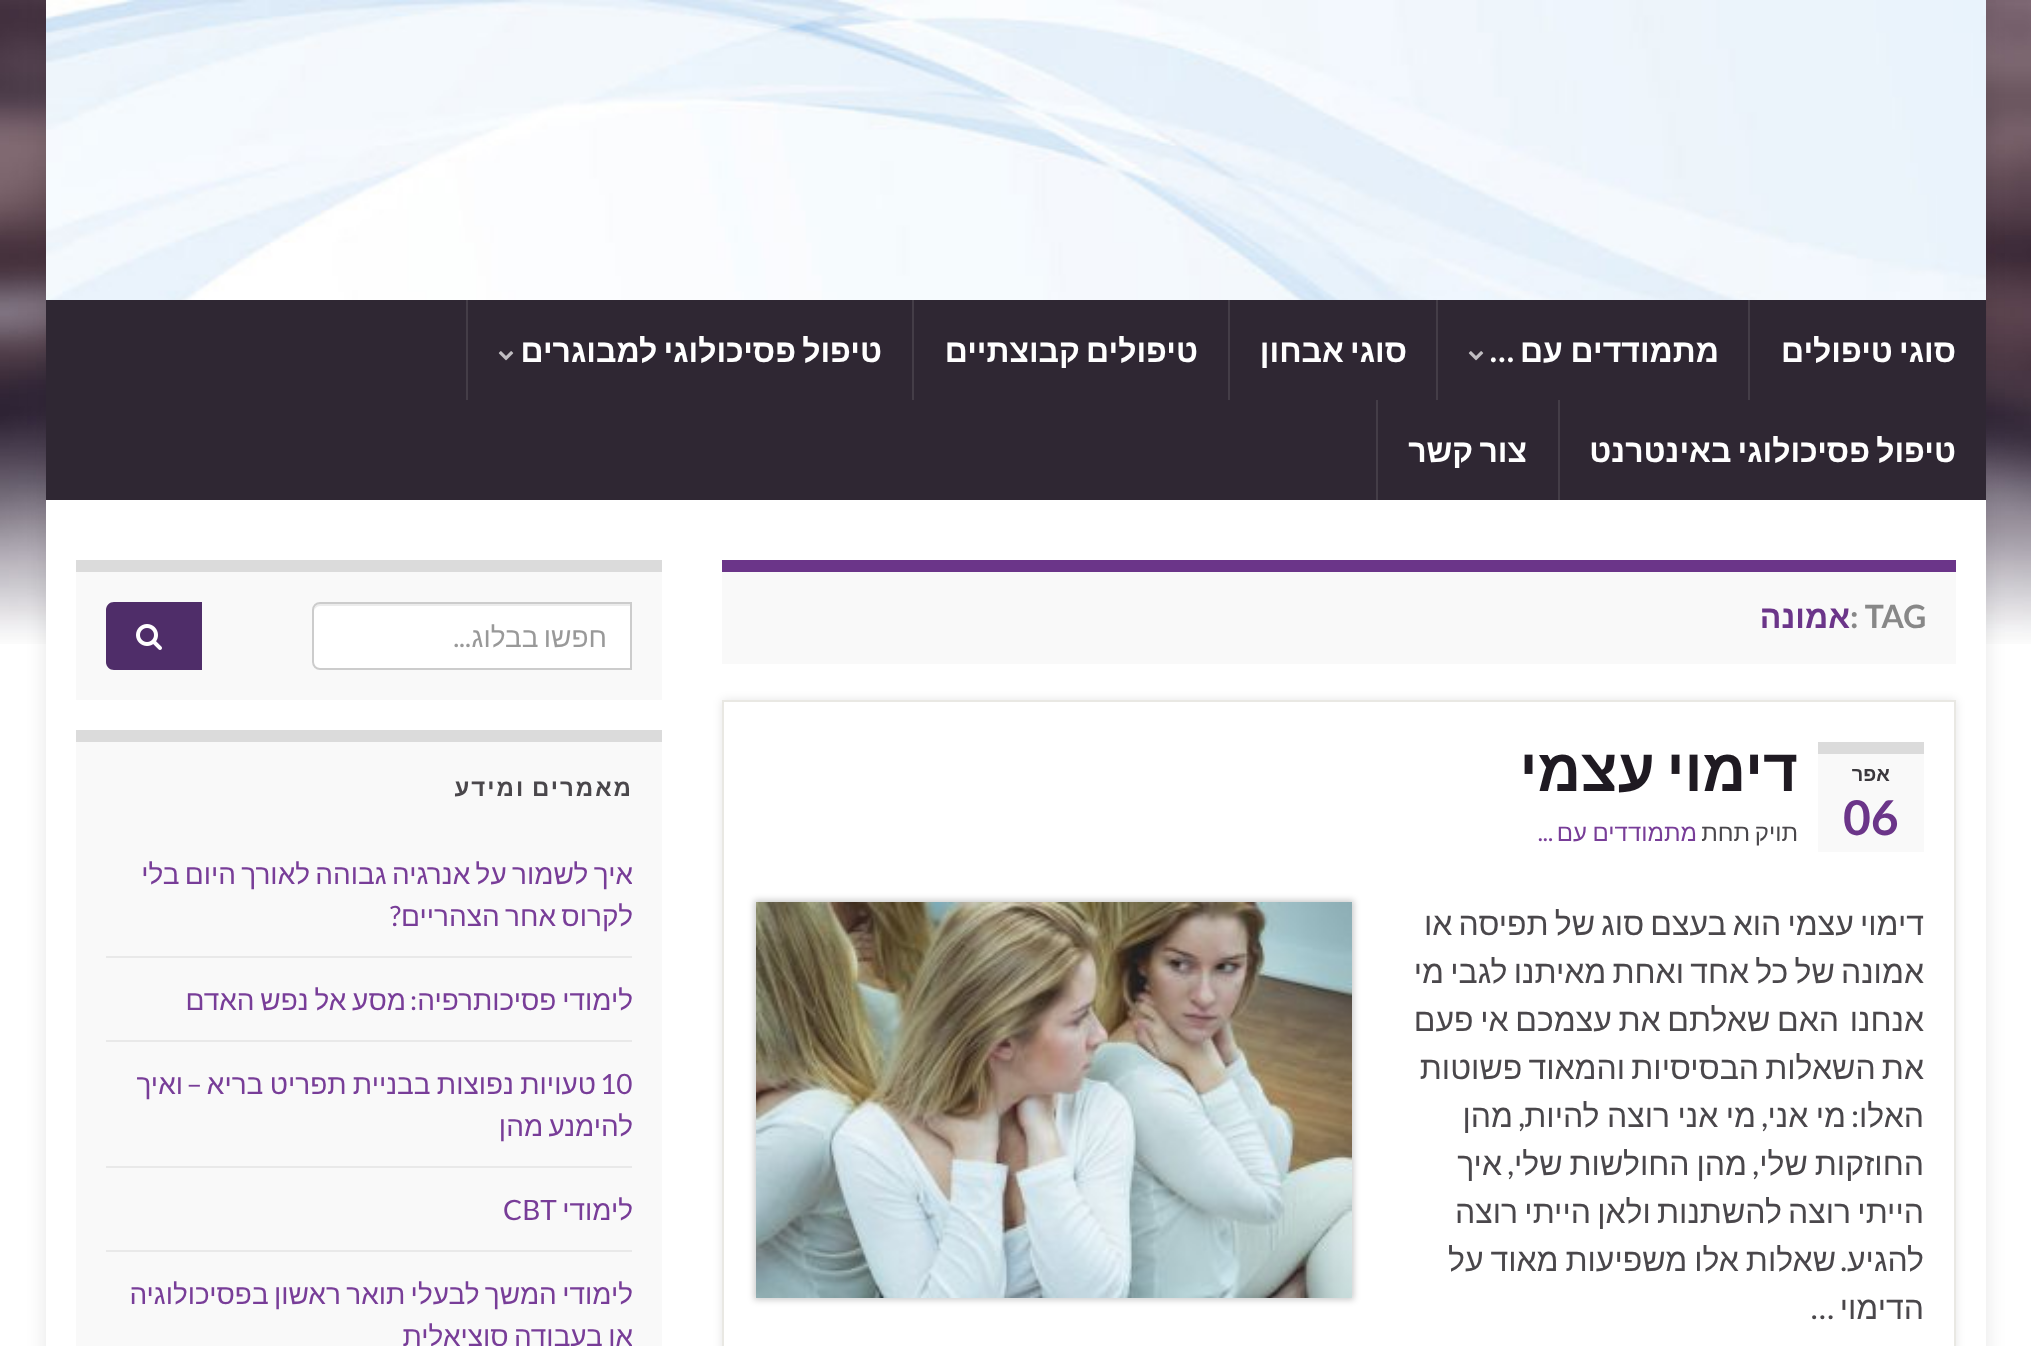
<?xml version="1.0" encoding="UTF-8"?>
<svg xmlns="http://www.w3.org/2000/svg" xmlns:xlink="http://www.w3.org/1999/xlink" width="2031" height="1346">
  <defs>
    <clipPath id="clip1"><path d="M 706 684 h 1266 v 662 h -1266 z m 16 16 h 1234 v 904 h -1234 z" clip-rule="evenodd" /></clipPath>
    <clipPath id="clip2"><rect x="338" y="620" width="268" height="34" /></clipPath>
    <clipPath id="clip3"><rect x="106" y="832" width="526" height="124" /></clipPath>
    <clipPath id="clip4"><rect x="106" y="958" width="526" height="82" /></clipPath>
    <clipPath id="clip5"><rect x="106" y="1042" width="526" height="124" /></clipPath>
    <clipPath id="clip6"><rect x="106" y="1252" width="526" height="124" /></clipPath>
  </defs>
  <rect width="100%" height="100%" fill="#ffffff" />
  <image x="0" y="0" width="2031" height="644" xlink:href="image1.png" />
  <rect x="46" width="1940" height="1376" fill="#000000" fill-opacity="0.1" filter="blur(10px)" />
  <image x="46" y="0" width="1940" height="300" xlink:href="image2.png" />
  <rect x="46" y="300" width="1940" height="200" fill="#2f2733" />
  <rect x="1748" y="300" width="2" height="100" fill="#443d47" />
  <rect x="1436" y="300" width="2" height="100" fill="#443d47" />
  <image x="1468" y="351" width="16" height="10" xlink:href="image3.png" />
  <rect x="1228" y="300" width="2" height="100" fill="#443d47" />
  <rect x="912" y="300" width="2" height="100" fill="#443d47" />
  <rect x="466" y="300" width="2" height="100" fill="#443d47" />
  <image x="498" y="351" width="16" height="10" xlink:href="image3.png" />
  <rect x="1558" y="400" width="2" height="100" fill="#443d47" />
  <rect x="1376" y="400" width="2" height="100" fill="#443d47" />
  <rect x="46" y="500" width="1940" height="846" fill="#ffffff" />
  <rect x="722" y="572" width="1234" height="92" fill="#f9f9f9" />
  <rect x="722" y="560" width="1234" height="12" fill="#6b3589" />
  <g clip-path="url(#clip1)">
    <rect x="722" y="700" width="1234" height="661" fill="#000000" fill-opacity="0.1" filter="blur(5px)" />
  </g>
  <rect x="723" y="701" width="1232" height="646" fill="none" stroke="#e9e8e3" stroke-width="2" />
  <rect x="1818" y="754" width="106" height="98" fill="#f9f9f9" />
  <rect x="1818" y="742" width="106" height="12" fill="#dbdbdb" />
  <rect x="754" y="900" width="600" height="400" fill="#000000" fill-opacity="0.2" filter="blur(3px)" />
  <image x="756" y="902" width="596" height="396" xlink:href="image4.png" />
  <rect x="76" y="572" width="586" height="128" fill="#f9f9f9" />
  <rect x="76" y="560" width="586" height="12" fill="#dbdbdb" />
  <path d="M 320 602 h 312 v 68 h -312 c -4.5 0 -8 -3.5 -8 -8 v -52 c 0 -4.5 3.5 -8 8 -8 z" fill="#ffffff" />
  <path d="M 320 606 h 310 v -2 h -311 c -4 1 -5 5 -5 8 c 0 -3 3 -6 6 -6 z" fill="#ececec" />
  <path d="M 320 603 h 311 v 66 h -311 c -4 0 -7 -3 -7 -7 v -52 c 0 -4 3 -7 7 -7 z" fill="none" stroke="#cccccc" stroke-width="2" />
  <path d="M 114 602 h 88 v 68 h -88 c -4.5 0 -8 -3.5 -8 -8 v -52 c 0 -4.5 3.5 -8 8 -8 z" fill="#4f2d69" />
  <image x="136" y="624" width="26" height="26" xlink:href="image5.png" />
  <rect x="76" y="742" width="586" height="604" fill="#f9f9f9" />
  <rect x="76" y="730" width="586" height="12" fill="#dbdbdb" />
  <rect x="106" y="956" width="526" height="2" fill="#e9e9e9" />
  <rect x="106" y="1040" width="526" height="2" fill="#e9e9e9" />
  <rect x="106" y="1166" width="526" height="2" fill="#e9e9e9" />
  <rect x="106" y="1250" width="526" height="2" fill="#e9e9e9" />
  <text x="1956" y="362" word-spacing="-2.75" style="font-family: Liberation Sans; font-size: 32px; font-weight: bold; direction: rtl; fill: #ffffff">סוגי טיפולים</text>
  <text x="1719" y="362" word-spacing="-1" style="font-family: Liberation Sans; font-size: 32px; font-weight: bold; direction: rtl; fill: #ffffff">מתמודדים עם</text>
  <text x="1514" y="362" style="font-family: Lato; font-size: 32px; font-weight: bold; direction: rtl; fill: #ffffff">…</text>
  <text x="1407" y="362" word-spacing="-2.75" style="font-family: Liberation Sans; font-size: 32px; font-weight: bold; direction: rtl; fill: #ffffff">סוגי אבחון</text>
  <text x="1198" y="362" word-spacing="-2.75" style="font-family: Liberation Sans; font-size: 32px; font-weight: bold; direction: rtl; fill: #ffffff">טיפולים קבוצתיים</text>
  <text x="882" y="362" word-spacing="-2.75" style="font-family: Liberation Sans; font-size: 32px; font-weight: bold; direction: rtl; fill: #ffffff">טיפול פסיכולוגי למבוגרים</text>
  <text x="1956" y="462" word-spacing="-2.75" style="font-family: Liberation Sans; font-size: 32px; font-weight: bold; direction: rtl; fill: #ffffff">טיפול פסיכולוגי באינטרנט</text>
  <text x="1527" y="462" word-spacing="-2.75" style="font-family: Liberation Sans; font-size: 32px; font-weight: bold; direction: rtl; fill: #ffffff">צור קשר</text>
  <text x="1850" y="628" style="font-family: Lato; font-size: 32px; font-weight: bold; fill: #888888">: TAG</text>
  <text x="1850" y="628" style="font-family: Liberation Sans; font-size: 32px; font-weight: bold; direction: rtl; fill: #6b3589">אמונה</text>
  <text x="1890" y="781" style="font-family: Liberation Sans; font-size: 20px; font-weight: bold; direction: rtl; fill: #3b383d">אפר</text>
  <text x="1843" y="835" style="font-family: Lato; font-size: 48px; font-weight: bold; fill: #6b3589">06</text>
  <text x="1798" y="791" word-spacing="-5" style="font-family: Liberation Sans; font-size: 60px; font-weight: bold; direction: rtl; fill: #1f1a22">דימוי עצמי</text>
  <text x="1798" y="841" word-spacing="-2" style="font-family: Liberation Sans; font-size: 24px; direction: rtl; fill: #4a474b">תויק תחת</text>
  <text x="1697" y="841" word-spacing="-1" style="font-family: Liberation Sans; font-size: 24px; direction: rtl; fill: #783d98">מתמודדים עם</text>
  <text x="1553" y="841" style="font-family: Lato; font-size: 24px; direction: rtl; fill: #783d98">...</text>
  <text x="1924" y="935" word-spacing="-2.75" style="font-family: Liberation Sans; font-size: 32px; direction: rtl; fill: #4a474b">דימוי עצמי הוא בעצם סוג של תפיסה או</text>
  <text x="1924" y="983" word-spacing="-2.75" style="font-family: Liberation Sans; font-size: 32px; direction: rtl; fill: #4a474b">אמונה של כל אחד ואחת מאיתנו לגבי מי</text>
  <text x="1924" y="1031" style="font-family: Liberation Sans; font-size: 32px; direction: rtl; fill: #4a474b">אנחנו</text>
  <text x="1839" y="1031" word-spacing="-2.25" style="font-family: Liberation Sans; font-size: 32px; direction: rtl; fill: #4a474b">האם שאלתם את עצמכם אי פעם</text>
  <text x="1924" y="1079" word-spacing="-2.75" style="font-family: Liberation Sans; font-size: 32px; direction: rtl; fill: #4a474b">את השאלות הבסיסיות והמאוד פשוטות</text>
  <text x="1924" y="1127" style="font-family: Liberation Sans; font-size: 32px; direction: rtl; fill: #4a474b">האלו</text>
  <text x="1859" y="1127" style="font-family: Lato; font-size: 32px; direction: rtl; fill: #4a474b">:</text>
  <text x="1846" y="1127" word-spacing="-1.5" style="font-family: Liberation Sans; font-size: 32px; direction: rtl; fill: #4a474b">מי אני</text>
  <text x="1768" y="1127" style="font-family: Lato; font-size: 32px; direction: rtl; fill: #4a474b">,</text>
  <text x="1756" y="1127" word-spacing="-1.5" style="font-family: Liberation Sans; font-size: 32px; direction: rtl; fill: #4a474b">מי אני רוצה להיות</text>
  <text x="1525" y="1127" style="font-family: Lato; font-size: 32px; direction: rtl; fill: #4a474b">,</text>
  <text x="1513" y="1127" style="font-family: Liberation Sans; font-size: 32px; direction: rtl; fill: #4a474b">מהן</text>
  <text x="1924" y="1175" word-spacing="-2" style="font-family: Liberation Sans; font-size: 32px; direction: rtl; fill: #4a474b">החוזקות שלי</text>
  <text x="1759" y="1175" style="font-family: Lato; font-size: 32px; direction: rtl; fill: #4a474b">,</text>
  <text x="1747" y="1175" word-spacing="-2" style="font-family: Liberation Sans; font-size: 32px; direction: rtl; fill: #4a474b">מהן החולשות שלי</text>
  <text x="1514" y="1175" style="font-family: Lato; font-size: 32px; direction: rtl; fill: #4a474b">,</text>
  <text x="1502" y="1175" style="font-family: Liberation Sans; font-size: 32px; direction: rtl; fill: #4a474b">איך</text>
  <text x="1924" y="1223" word-spacing="-2.75" style="font-family: Liberation Sans; font-size: 32px; direction: rtl; fill: #4a474b">הייתי רוצה להשתנות ולאן הייתי רוצה</text>
  <text x="1924" y="1271" style="font-family: Liberation Sans; font-size: 32px; direction: rtl; fill: #4a474b">להגיע</text>
  <text x="1836" y="1271" word-spacing="-2" style="font-family: Liberation Sans; font-size: 32px; direction: rtl; fill: #4a474b">שאלות אלו משפיעות מאוד על</text>
  <text x="1847" y="1271" style="font-family: Lato; font-size: 32px; direction: rtl; fill: #4a474b">.</text>
  <text x="1924" y="1319" style="font-family: Liberation Sans; font-size: 32px; direction: rtl; fill: #4a474b">הדימוי</text>
  <text x="1834" y="1319" style="font-family: Lato; font-size: 32px; direction: rtl; fill: #4a474b">…</text>
  <g clip-path="url(#clip2)">
    <text x="607" y="647" word-spacing="-2.5" style="font-family: Liberation Sans; font-size: 28px; direction: rtl; fill: #999999">חפשו בבלוג</text>
  </g>
  <text x="471" y="647" style="font-family: Lato; font-size: 28px; direction: rtl; fill: #999999">...</text>
  <text x="633" y="796" word-spacing="-2" style="font-family: Liberation Sans; font-size: 24px; font-weight: bold; letter-spacing: 2px; direction: rtl; fill: #4a474b">מאמרים ומידע</text>
  <g clip-path="url(#clip3)">
    <text x="633" y="884" word-spacing="-2.5" style="font-family: Liberation Sans; font-size: 28px; direction: rtl; fill: #783d98">איך לשמור על אנרגיה גבוהה לאורך היום בלי</text>
    <text x="633" y="926" word-spacing="-2.5" style="font-family: Liberation Sans; font-size: 28px; direction: rtl; fill: #783d98">לקרוס אחר הצהריים</text>
  </g>
  <text x="401" y="926" style="font-family: Lato; font-size: 28px; direction: rtl; fill: #783d98">?</text>
  <g clip-path="url(#clip4)">
    <text x="633" y="1010" word-spacing="-2" style="font-family: Liberation Sans; font-size: 28px; direction: rtl; fill: #783d98">לימודי פסיכותרפיה</text>
  </g>
  <text x="417" y="1010" style="font-family: Lato; font-size: 28px; direction: rtl; fill: #783d98">:</text>
  <text x="406" y="1010" word-spacing="-2" style="font-family: Liberation Sans; font-size: 28px; direction: rtl; fill: #783d98">מסע אל נפש האדם</text>
  <text x="600" y="1094" style="font-family: Lato; font-size: 28px; fill: #783d98">10</text>
  <text x="596" y="1094" word-spacing="-1.5" style="font-family: Liberation Sans; font-size: 28px; direction: rtl; fill: #783d98">טעויות נפוצות בבניית תפריט בריא</text>
  <text x="202" y="1094" style="font-family: Lato; font-size: 28px; direction: rtl; fill: #783d98">–</text>
  <text x="183" y="1094" style="font-family: Liberation Sans; font-size: 28px; direction: rtl; fill: #783d98">ואיך</text>
  <g clip-path="url(#clip5)">
    <text x="633" y="1136" word-spacing="-2.5" style="font-family: Liberation Sans; font-size: 28px; direction: rtl; fill: #783d98">להימנע מהן</text>
  </g>
  <text x="633" y="1220" style="font-family: Liberation Sans; font-size: 28px; direction: rtl; fill: #783d98">לימודי</text>
  <text x="503" y="1220" style="font-family: Lato; font-size: 28px; fill: #783d98">CBT</text>
  <g clip-path="url(#clip6)">
    <text x="633" y="1304" word-spacing="-2.5" style="font-family: Liberation Sans; font-size: 28px; direction: rtl; fill: #783d98">לימודי המשך לבעלי תואר ראשון בפסיכולוגיה</text>
    <text x="633" y="1346" word-spacing="-2.5" style="font-family: Liberation Sans; font-size: 28px; direction: rtl; fill: #783d98">או בעבודה סוציאלית</text>
  </g>
</svg>
